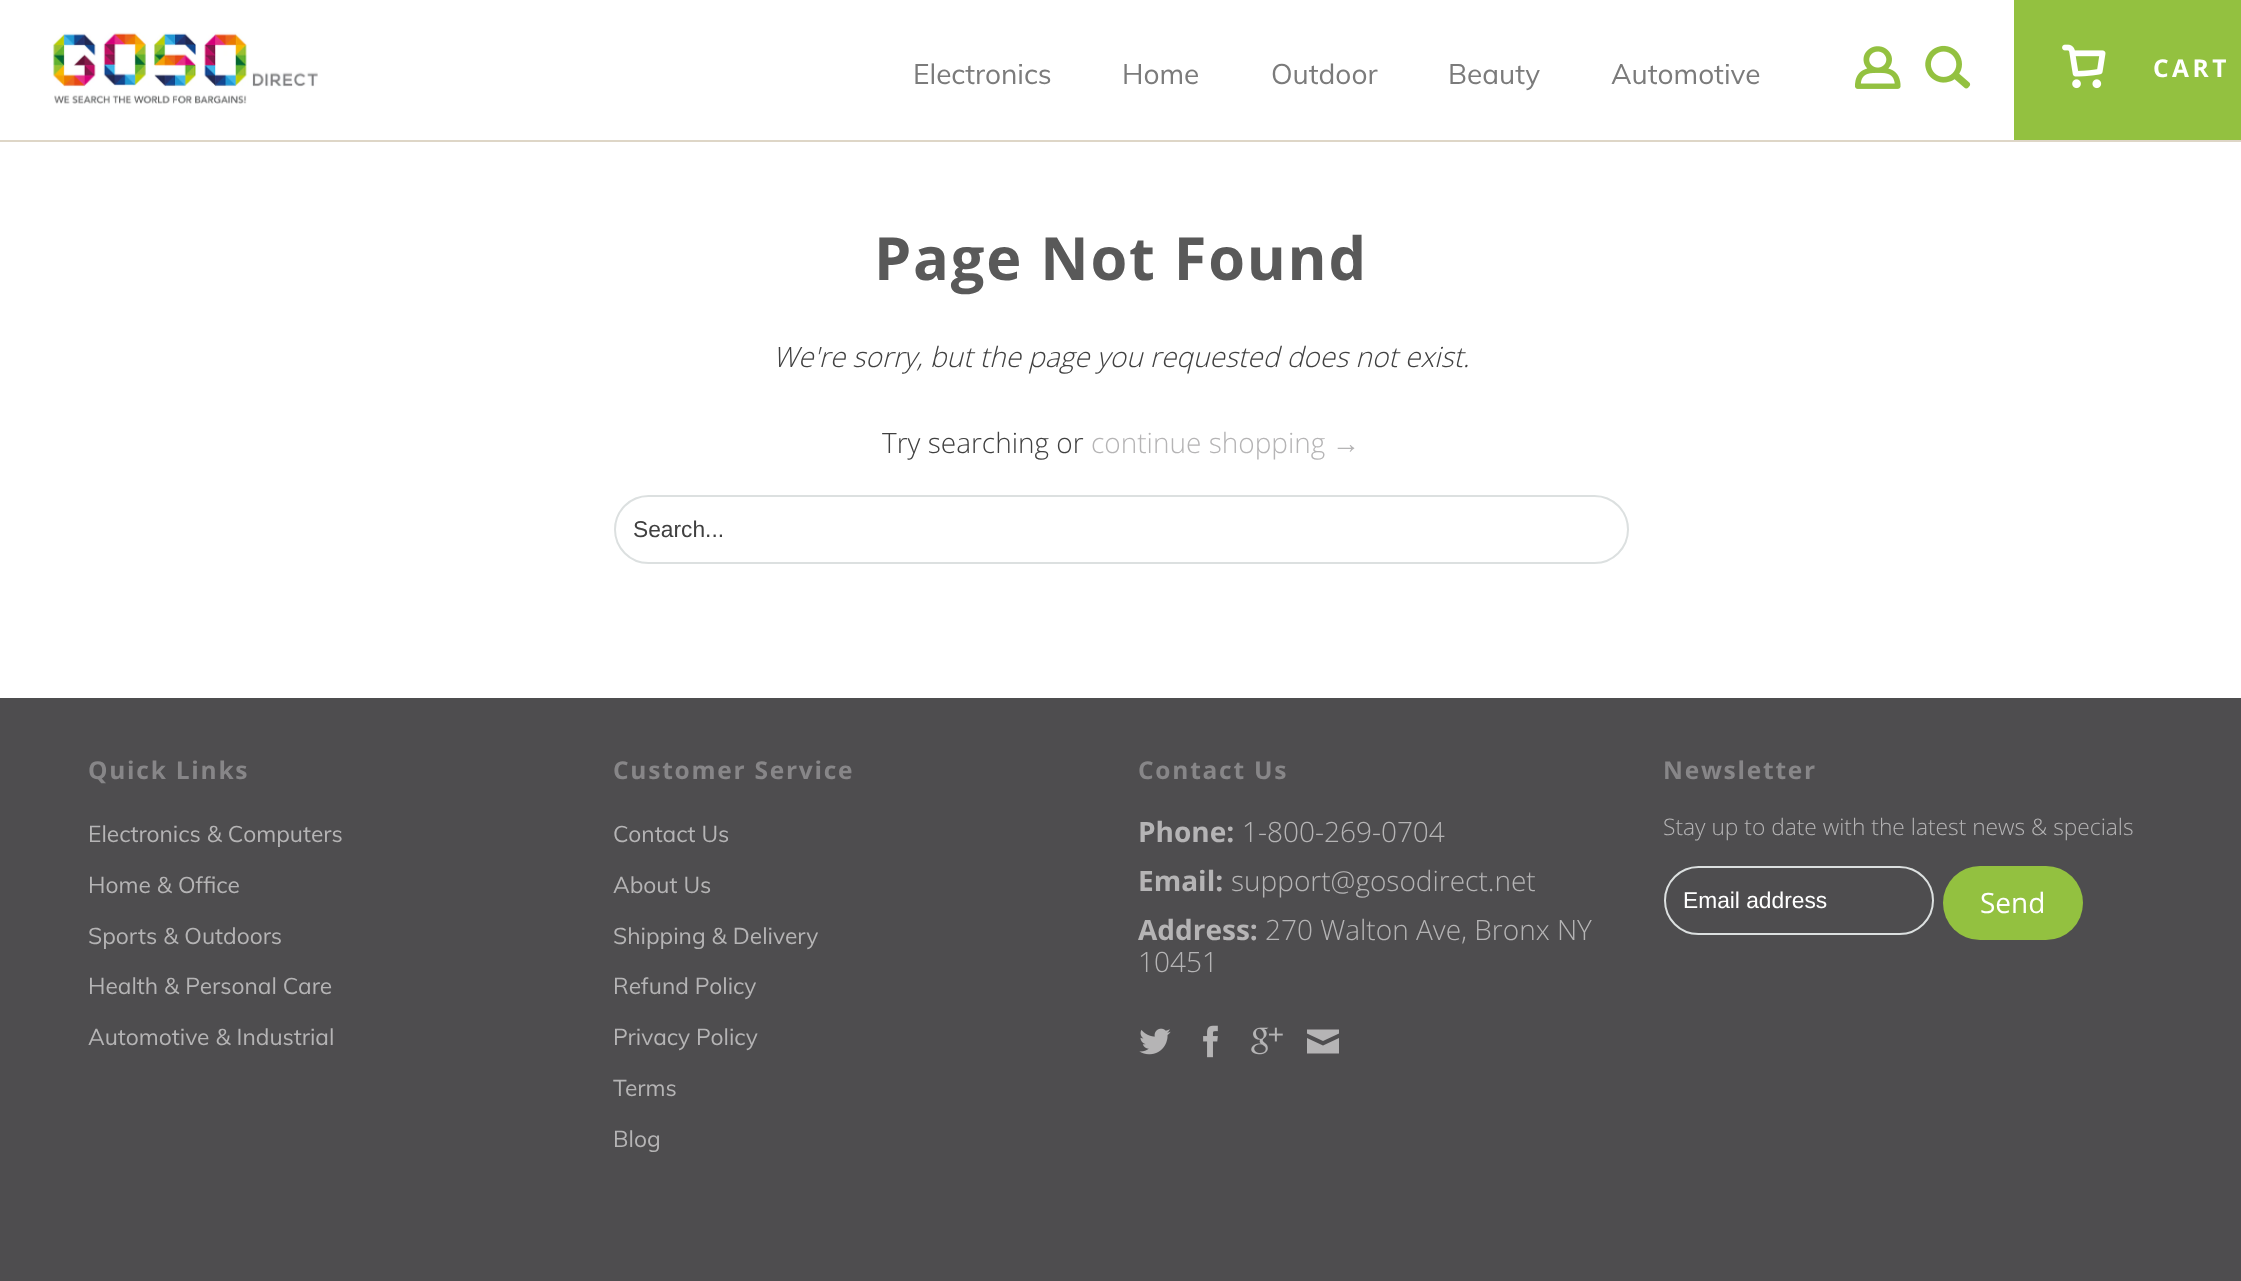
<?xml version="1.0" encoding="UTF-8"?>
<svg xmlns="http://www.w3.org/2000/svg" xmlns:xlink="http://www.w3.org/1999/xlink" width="2241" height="1281">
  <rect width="100%" height="100%" fill="#ffffff" />
  <rect y="140" width="2241" height="2" fill="#ded6c7" />
  <image x="52" y="32" width="266" height="72" xlink:href="image1.png" />
  <image x="1855" y="46" width="46" height="43" xlink:href="image2.png" />
  <image x="1925" y="45" width="46" height="44" xlink:href="image3.png" />
  <rect x="2014" width="227" height="140" fill="#93c140" />
  <image x="2062" y="44" width="44" height="45" xlink:href="image4.png" />
  <rect x="615" y="496" width="1013" height="67" rx="33.5" fill="none" stroke="#dce0e0" stroke-width="2" />
  <rect y="698" width="2241" height="583" fill="#4e4d4f" />
  <image x="1139" y="1028" width="32" height="27" xlink:href="image5.png" />
  <image x="1203" y="1025" width="15" height="33" xlink:href="image6.png" />
  <image x="1251" y="1027" width="32" height="28" xlink:href="image7.png" />
  <path d="M 1323 1041 l -16 -7.5 v -4 h 32 v 4 z m 0 4.5 l 16 -7.5 v 15.5 h -32 v -15.5 z" fill="#b5b4b5" />
  <rect x="1665" y="867" width="268" height="67" rx="33.5" fill="none" stroke="#dce0e0" stroke-width="2" />
  <rect x="1943" y="866" width="140" height="74" rx="37" fill="#93c140" />
  <text x="913" y="84" style="font-family: Muli; font-size: 28px; fill: #7b7b7b">Electronics</text>
  <text x="1122" y="84" style="font-family: Muli; font-size: 28px; fill: #7b7b7b">Home</text>
  <text x="1271" y="84" style="font-family: Muli; font-size: 28px; fill: #7b7b7b">Outdoor</text>
  <text x="1448" y="84" style="font-family: Muli; font-size: 28px; fill: #7b7b7b">Beauty</text>
  <text x="1611" y="84" style="font-family: Muli; font-size: 28px; fill: #7b7b7b">Automotive</text>
  <text x="2153" y="77" style="font-family: Open Sans; font-size: 24.5px; font-weight: bold; letter-spacing: 3.5px; fill: #ffffff">CART</text>
  <text x="874" y="280" style="font-family: Open Sans; font-size: 59.5px; font-weight: bold; letter-spacing: 1.75px; fill: #595959">Page Not Found</text>
  <text x="773" y="367" style="font-family: Open Sans; font-size: 28px; font-weight: 300; font-style: italic; fill: #404040">We're sorry, but the page you requested does not exist.</text>
  <text x="882" y="453" style="font-family: Open Sans; font-size: 28px; font-weight: 300; fill: #404040">Try searching or</text>
  <text x="1091" y="453" style="font-family: Open Sans; font-size: 28px; font-weight: 300; fill: #b5b4b5">continue shopping</text>
  <text x="1332" y="453" style="font-family: Liberation Sans; font-size: 28px; fill: #b5b4b5">→</text>
  <text x="633" y="537" style="font-family: Liberation Sans; font-size: 22.75px; fill: #404040">Search...</text>
  <text x="88" y="779" style="font-family: Open Sans; font-size: 24.5px; font-weight: bold; letter-spacing: 1.75px; fill: #878688">Quick Links</text>
  <text x="88" y="842" style="font-family: Muli; font-size: 22.75px; fill: #b5b4b5">Electronics &amp; Computers</text>
  <text x="88" y="893" style="font-family: Muli; font-size: 22.75px; fill: #b5b4b5">Home &amp; Office</text>
  <text x="88" y="944" style="font-family: Muli; font-size: 22.75px; fill: #b5b4b5">Sports &amp; Outdoors</text>
  <text x="88" y="994" style="font-family: Muli; font-size: 22.75px; fill: #b5b4b5">Health &amp; Personal Care</text>
  <text x="88" y="1045" style="font-family: Muli; font-size: 22.75px; fill: #b5b4b5">Automotive &amp; Industrial</text>
  <text x="613" y="779" style="font-family: Open Sans; font-size: 24.5px; font-weight: bold; letter-spacing: 1.75px; fill: #878688">Customer Service</text>
  <text x="613" y="842" style="font-family: Muli; font-size: 22.75px; fill: #b5b4b5">Contact Us</text>
  <text x="613" y="893" style="font-family: Muli; font-size: 22.75px; fill: #b5b4b5">About Us</text>
  <text x="613" y="944" style="font-family: Muli; font-size: 22.75px; fill: #b5b4b5">Shipping &amp; Delivery</text>
  <text x="613" y="994" style="font-family: Muli; font-size: 22.75px; fill: #b5b4b5">Refund Policy</text>
  <text x="613" y="1045" style="font-family: Muli; font-size: 22.75px; fill: #b5b4b5">Privacy Policy</text>
  <text x="613" y="1096" style="font-family: Muli; font-size: 22.75px; fill: #b5b4b5">Terms</text>
  <text x="613" y="1147" style="font-family: Muli; font-size: 22.75px; fill: #b5b4b5">Blog</text>
  <text x="1138" y="779" style="font-family: Open Sans; font-size: 24.5px; font-weight: bold; letter-spacing: 1.75px; fill: #878688">Contact Us</text>
  <text x="1138" y="842" style="font-family: Open Sans; font-size: 28px; font-weight: bold; fill: #b5b4b5">Phone:</text>
  <text x="1242" y="842" style="font-family: Open Sans; font-size: 28px; font-weight: 300; fill: #b5b4b5">1-800-269-0704</text>
  <text x="1138" y="891" style="font-family: Open Sans; font-size: 28px; font-weight: bold; fill: #b5b4b5">Email:</text>
  <text x="1231" y="891" style="font-family: Open Sans; font-size: 28px; font-weight: 300; fill: #b5b4b5">support@gosodirect.net</text>
  <text x="1138" y="940" style="font-family: Open Sans; font-size: 28px; font-weight: bold; fill: #b5b4b5">Address:</text>
  <text x="1265" y="940" style="font-family: Open Sans; font-size: 28px; font-weight: 300; fill: #b5b4b5">270 Walton Ave, Bronx NY</text>
  <text x="1138" y="972" style="font-family: Open Sans; font-size: 28px; font-weight: 300; fill: #b5b4b5">10451</text>
  <text x="1663" y="779" style="font-family: Open Sans; font-size: 24.5px; font-weight: bold; letter-spacing: 1.75px; fill: #878688">Newsletter</text>
  <text x="1663" y="835" style="font-family: Open Sans; font-size: 22.75px; font-weight: 300; fill: #b5b4b5">Stay up to date with the latest news &amp; specials</text>
  <text x="1683" y="908" style="font-family: Liberation Sans; font-size: 22.75px; fill: #ffffff">Email address</text>
  <text x="1980" y="913" style="font-family: Open Sans; font-size: 28px; fill: #ffffff">Send</text>
</svg>
